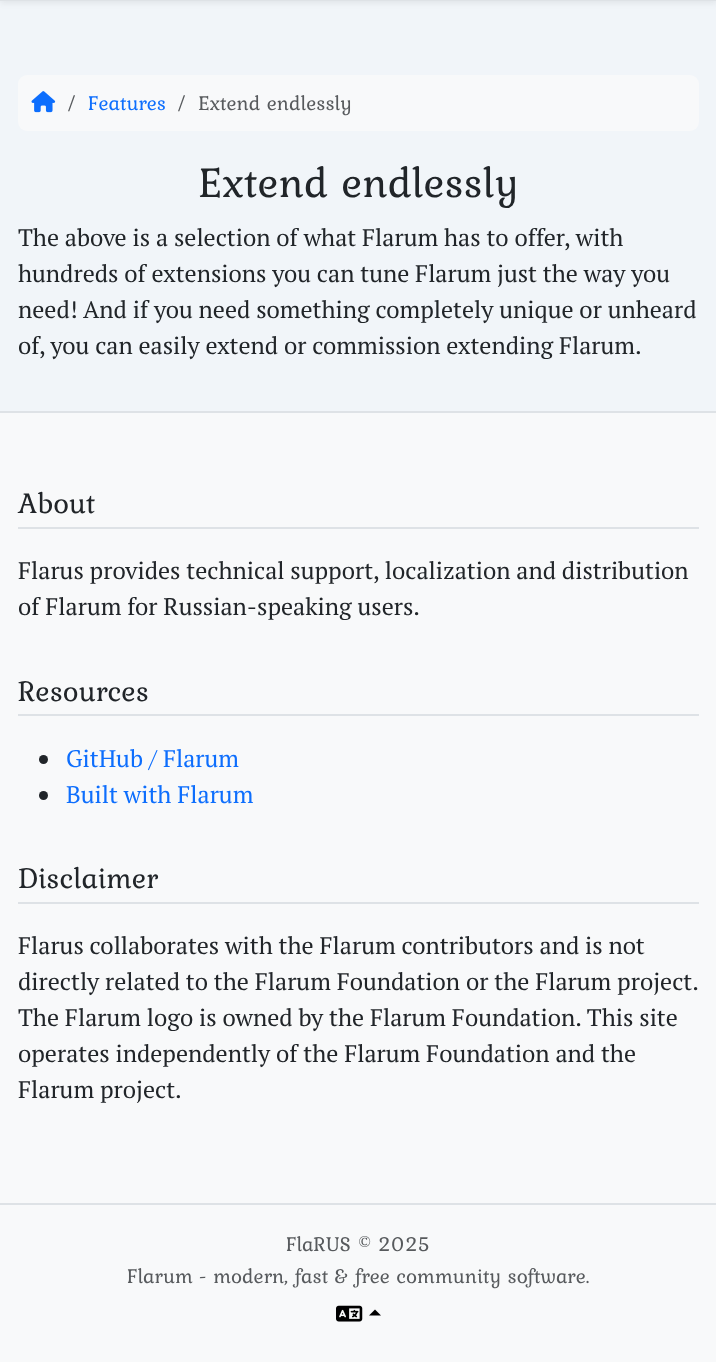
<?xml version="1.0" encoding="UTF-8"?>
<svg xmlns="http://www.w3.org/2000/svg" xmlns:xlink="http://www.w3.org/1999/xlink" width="716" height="1362">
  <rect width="100%" height="100%" fill="#f1f5f9" />
  <rect y="-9" width="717" height="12" fill="#000000" fill-opacity="0.07" filter="blur(3px)" />
  <rect width="716" height="1" fill="#dee2e6" />
  <rect x="18" y="75" width="681" height="56" rx="9" fill="#f8f9fa" />
  <image x="31" y="91" width="25" height="22" xlink:href="image1.png" />
  <rect y="413" width="716" height="949" fill="#f8f9fa" />
  <rect y="411" width="716" height="2" fill="#dee2e6" />
  <rect y="1203" width="716" height="2" fill="#dee2e6" />
  <rect x="18" y="527" width="681" height="2" fill="#dee2e6" />
  <rect x="18" y="714" width="681" height="2" fill="#dee2e6" />
  <circle cx="43.5" cy="759.5" r="4.5" fill="#212529" />
  <circle cx="43.5" cy="795.5" r="4.5" fill="#212529" />
  <rect x="18" y="902" width="681" height="2" fill="#dee2e6" />
  <image x="336" y="1305" width="27" height="17" xlink:href="image2.png" />
  <path d="M 381 1315.5 h -12 l 6 -6 z" fill="#000000" />
  <text x="68" y="110" style="font-family: Kurale; font-size: 21px; fill: #575a5d">/</text>
  <text x="88" y="110" style="font-family: Kurale; font-size: 21px; fill: #0d6efd">Features</text>
  <text x="178" y="110" style="font-family: Kurale; font-size: 21px; fill: #575a5d">/</text>
  <text x="198" y="110" style="font-family: Kurale; font-size: 21px; fill: #575a5d">Extend endlessly</text>
  <text x="198" y="197" style="font-family: Kurale; font-size: 43.75px; fill: #212529">Extend endlessly</text>
  <text x="18" y="246" style="font-family: PT Serif; font-size: 24px; fill: #212529">The above is a selection of what Flarum has to offer, with</text>
  <text x="18" y="282" style="font-family: PT Serif; font-size: 24px; fill: #212529">hundreds of extensions you can tune Flarum just the way you</text>
  <text x="18" y="318" style="font-family: PT Serif; font-size: 24px; fill: #212529">need! And if you need something completely unique or unheard</text>
  <text x="18" y="354" style="font-family: PT Serif; font-size: 24px; fill: #212529">of, you can easily extend or commission extending Flarum.</text>
  <text x="18" y="513" style="font-family: Kurale; font-size: 30px; fill: #212529">About</text>
  <text x="18" y="579" style="font-family: PT Serif; font-size: 24px; fill: #212529">Flarus provides technical support, localization and distribution</text>
  <text x="18" y="615" style="font-family: PT Serif; font-size: 24px; fill: #212529">of Flarum for Russian-speaking users.</text>
  <text x="18" y="701" style="font-family: Kurale; font-size: 30px; fill: #212529">Resources</text>
  <text x="66" y="767" style="font-family: PT Serif; font-size: 24px; fill: #0d6efd">GitHub / Flarum</text>
  <text x="66" y="803" style="font-family: PT Serif; font-size: 24px; fill: #0d6efd">Built with Flarum</text>
  <text x="18" y="888" style="font-family: Kurale; font-size: 30px; fill: #212529">Disclaimer</text>
  <text x="18" y="954" style="font-family: PT Serif; font-size: 24px; fill: #212529">Flarus collaborates with the Flarum contributors and is not</text>
  <text x="18" y="990" style="font-family: PT Serif; font-size: 24px; fill: #212529">directly related to the Flarum Foundation or the Flarum project.</text>
  <text x="18" y="1026" style="font-family: PT Serif; font-size: 24px; fill: #212529">The Flarum logo is owned by the Flarum Foundation. This site</text>
  <text x="18" y="1062" style="font-family: PT Serif; font-size: 24px; fill: #212529">operates independently of the Flarum Foundation and the</text>
  <text x="18" y="1098" style="font-family: PT Serif; font-size: 24px; fill: #212529">Flarum project.</text>
  <text x="286" y="1251" style="font-family: Kurale; font-size: 21px; fill: #575a5d">FlaRUS © 2025</text>
  <text x="127" y="1283" style="font-family: Kurale; font-size: 21px; fill: #575a5d">Flarum - modern, fast &amp; free community software.</text>
</svg>
